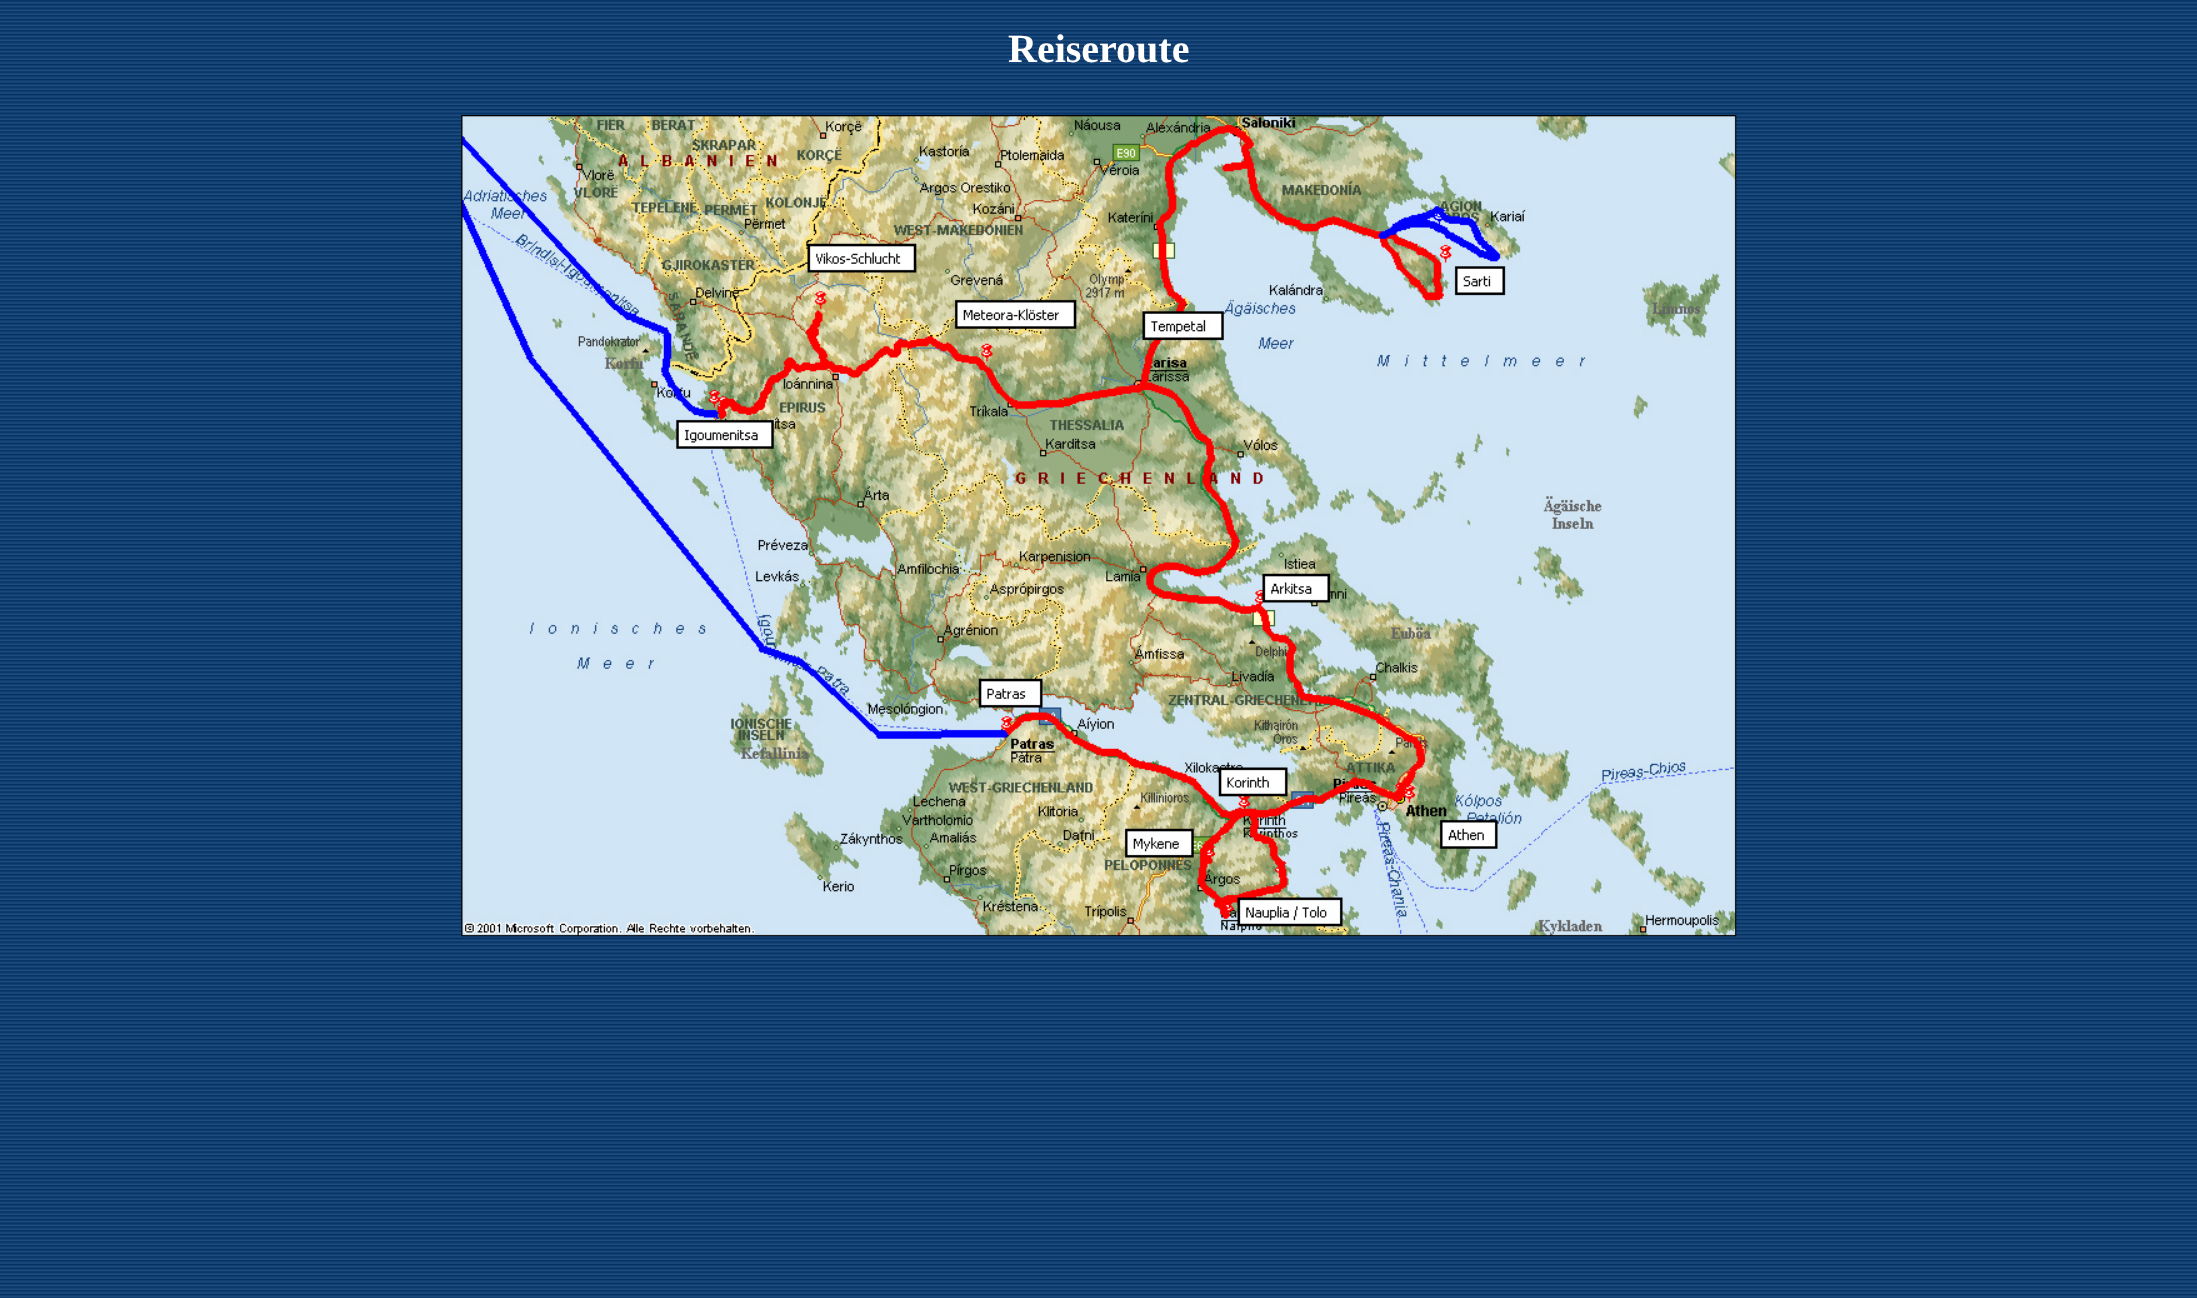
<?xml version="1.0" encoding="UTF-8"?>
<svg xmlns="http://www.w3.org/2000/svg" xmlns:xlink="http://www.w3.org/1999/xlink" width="2197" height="1298">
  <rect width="100%" height="100%" fill="#ffffff" />
  <image x="0" y="0" width="2197" height="1298" xlink:href="image1.png" />
  <image x="461" y="115" width="1276" height="822" xlink:href="image2.png" />
  <text x="1008" y="62" style="font-family: Liberation Serif; font-size: 40px; font-weight: bold; fill: #ffffff">Reiseroute</text>
</svg>
